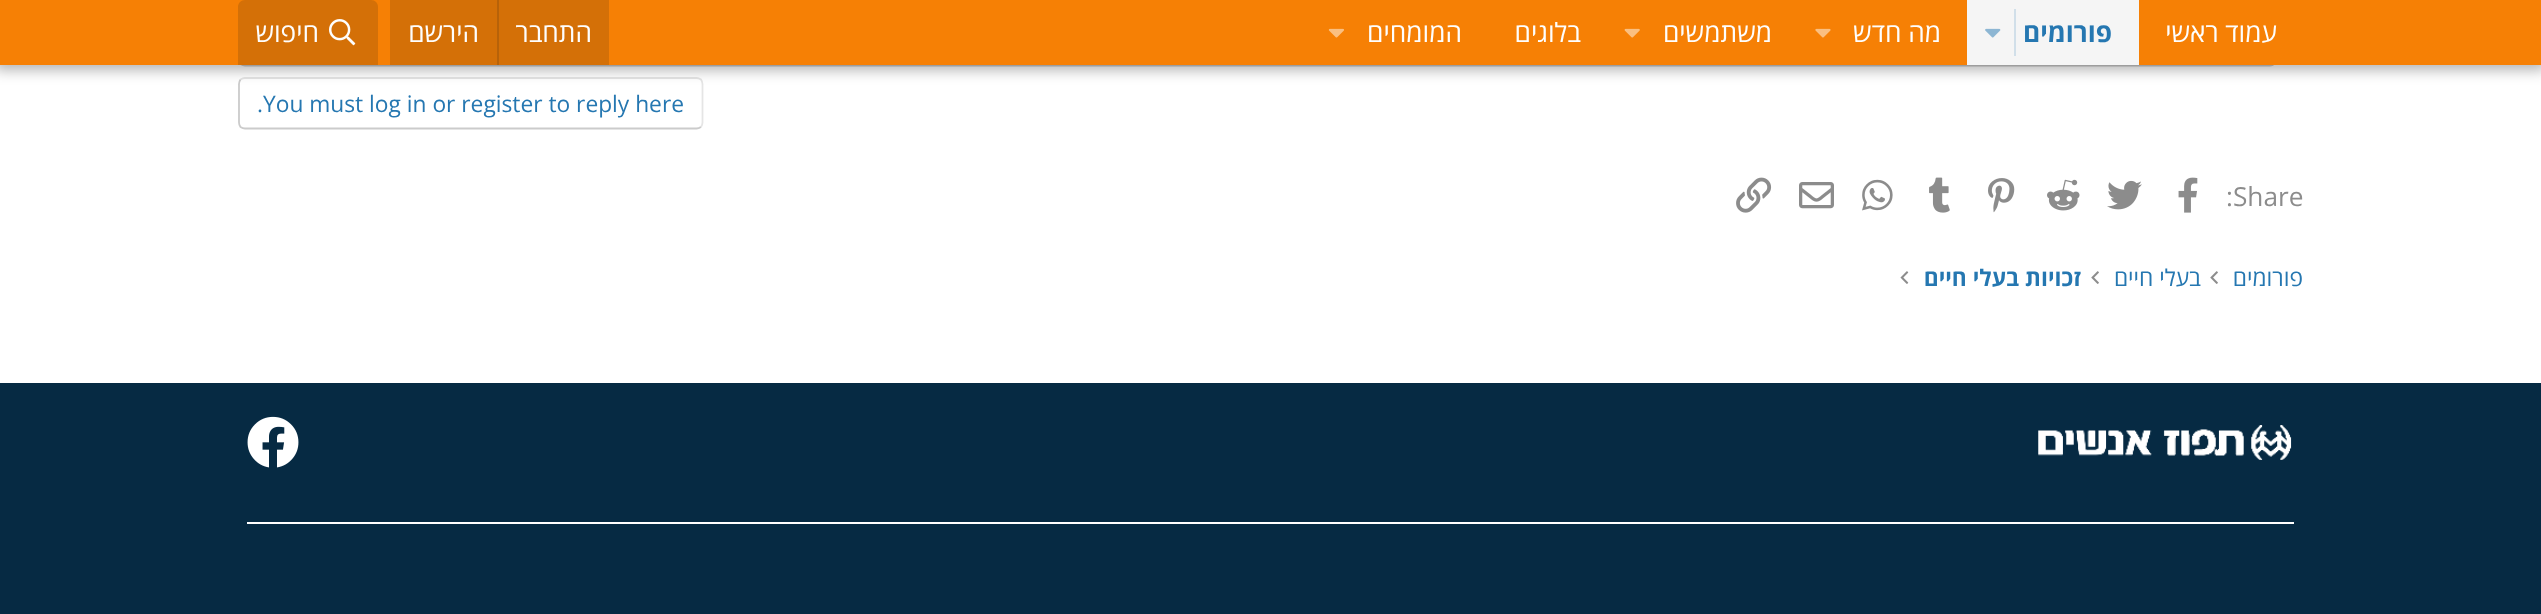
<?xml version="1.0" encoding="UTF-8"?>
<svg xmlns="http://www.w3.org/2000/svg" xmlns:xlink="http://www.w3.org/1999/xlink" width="2541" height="614">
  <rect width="100%" height="100%" fill="#ffffff" />
  <path d="M 2274 64 c -1 1 -2.5 1.5 -4 1.5 h -2025 c -1.5 0 -3 -0.5 -4.5 -1.5" fill="none" stroke="#cbcbcb" stroke-width="1.8" />
  <path d="M 240.5 79.5 c 1.5 -1 3 -1.5 4.5 -1.5 h 451.5 c 1.5 0 3 0.5 4.5 1.5 c 1 1.5 1.5 3 1.5 4.5 v 38.5 c 0 1.5 -0.5 3 -1.5 4.5" fill="none" stroke="#e5e5e5" stroke-width="1.8" />
  <path d="M 701 127 c -1.5 1 -3 1.5 -4.5 1.5 h -451.5 c -1.5 0 -3 -0.5 -4.5 -1.5 c -1 -1.5 -1.5 -3 -1.5 -4.5 v -38.5 c 0 -1.5 0.5 -3 1.5 -4.5" fill="none" stroke="#cbcbcb" stroke-width="1.8" />
  <rect x="-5" y="-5" width="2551" height="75" fill="#000000" fill-opacity="0.3" filter="blur(7px)" />
  <rect width="2541" height="65" fill="#f68005" />
  <rect x="1967" width="172" height="65" fill="#f5f5f5" />
  <rect x="2014" y="9" width="2" height="47" fill="#d1dfe9" />
  <image x="1985" y="28" width="16" height="10" xlink:href="image1.png" />
  <image x="1815" y="28" width="16" height="10" xlink:href="image2.png" />
  <image x="1624" y="28" width="16" height="10" xlink:href="image3.png" />
  <image x="1328" y="28" width="16" height="10" xlink:href="image4.png" />
  <rect x="390" width="219" height="65" fill="#d47007" />
  <rect x="497" width="2" height="65" fill="#b76209" />
  <path d="M 245 0 h 126 c 4 0 7 3 7 7 v 58 h -140 v -58 c 0 -4 3 -7 7 -7 z" fill="#d47007" />
  <image x="329" y="19" width="27" height="27" xlink:href="image5.png" />
  <image x="2178" y="177" width="20" height="36" xlink:href="image6.png" />
  <image x="2107" y="180" width="35" height="30" xlink:href="image7.png" />
  <image x="2047" y="179" width="33" height="32" xlink:href="image8.png" />
  <image x="1988" y="178" width="27" height="35" xlink:href="image9.png" />
  <image x="1929" y="177" width="21" height="36" xlink:href="image10.png" />
  <image x="1862" y="179" width="31" height="32" xlink:href="image11.png" />
  <image x="1799" y="182" width="35" height="27" xlink:href="image12.png" />
  <image x="1736" y="177" width="36" height="36" xlink:href="image13.png" />
  <image x="2210" y="271" width="8" height="13" xlink:href="image14.png" />
  <image x="2091" y="271" width="8" height="13" xlink:href="image14.png" />
  <image x="1900" y="271" width="9" height="13" xlink:href="image15.png" />
  <rect y="383" width="2541" height="231" fill="#062a43" />
  <rect x="247" y="522" width="2047" height="2" fill="#ffffff" />
  <image x="2038" y="425" width="254" height="35" xlink:href="image16.png" />
  <image x="247" y="416" width="52" height="52" xlink:href="image17.png" />
  <text x="2277" y="42" style="font-family: Open Sans; font-size: 26.25px; direction: rtl; fill: #fefefe">עמוד ראשי</text>
  <text x="2112" y="42" style="font-family: Open Sans; font-size: 26.25px; font-weight: bold; direction: rtl; fill: #2577b1">פורומים</text>
  <text x="1941" y="42" style="font-family: Open Sans; font-size: 26.25px; direction: rtl; fill: #fefefe">מה חדש</text>
  <text x="1772" y="42" style="font-family: Open Sans; font-size: 26.25px; direction: rtl; fill: #fefefe">משתמשים</text>
  <text x="1581" y="42" style="font-family: Open Sans; font-size: 26.25px; direction: rtl; fill: #fefefe">בלוגים</text>
  <text x="1462" y="42" style="font-family: Open Sans; font-size: 26.25px; direction: rtl; fill: #fefefe">המומחים</text>
  <text x="592" y="42" style="font-family: Open Sans; font-size: 26.25px; direction: rtl; fill: #fefefe">התחבר</text>
  <text x="479" y="42" style="font-family: Open Sans; font-size: 26.25px; direction: rtl; fill: #fefefe">הירשם</text>
  <text x="319" y="42" style="font-family: Open Sans; font-size: 26.25px; direction: rtl; fill: #fefefe">חיפוש</text>
  <text x="257" y="112" style="font-family: Open Sans; font-size: 22.75px; fill: #2577b1">.You must log in or register to reply here</text>
  <text x="2226" y="206" style="font-family: Open Sans; font-size: 26.25px; fill: #8c8c8c">:Share</text>
  <text x="2303" y="286" style="font-family: Open Sans; font-size: 22.75px; direction: rtl; fill: #2577b1">פורומים</text>
  <text x="2201" y="286" style="font-family: Open Sans; font-size: 22.75px; direction: rtl; fill: #2577b1">בעלי חיים</text>
  <text x="2081" y="286" style="font-family: Open Sans; font-size: 22.75px; font-weight: bold; direction: rtl; fill: #2577b1">זכויות בעלי חיים</text>
</svg>
